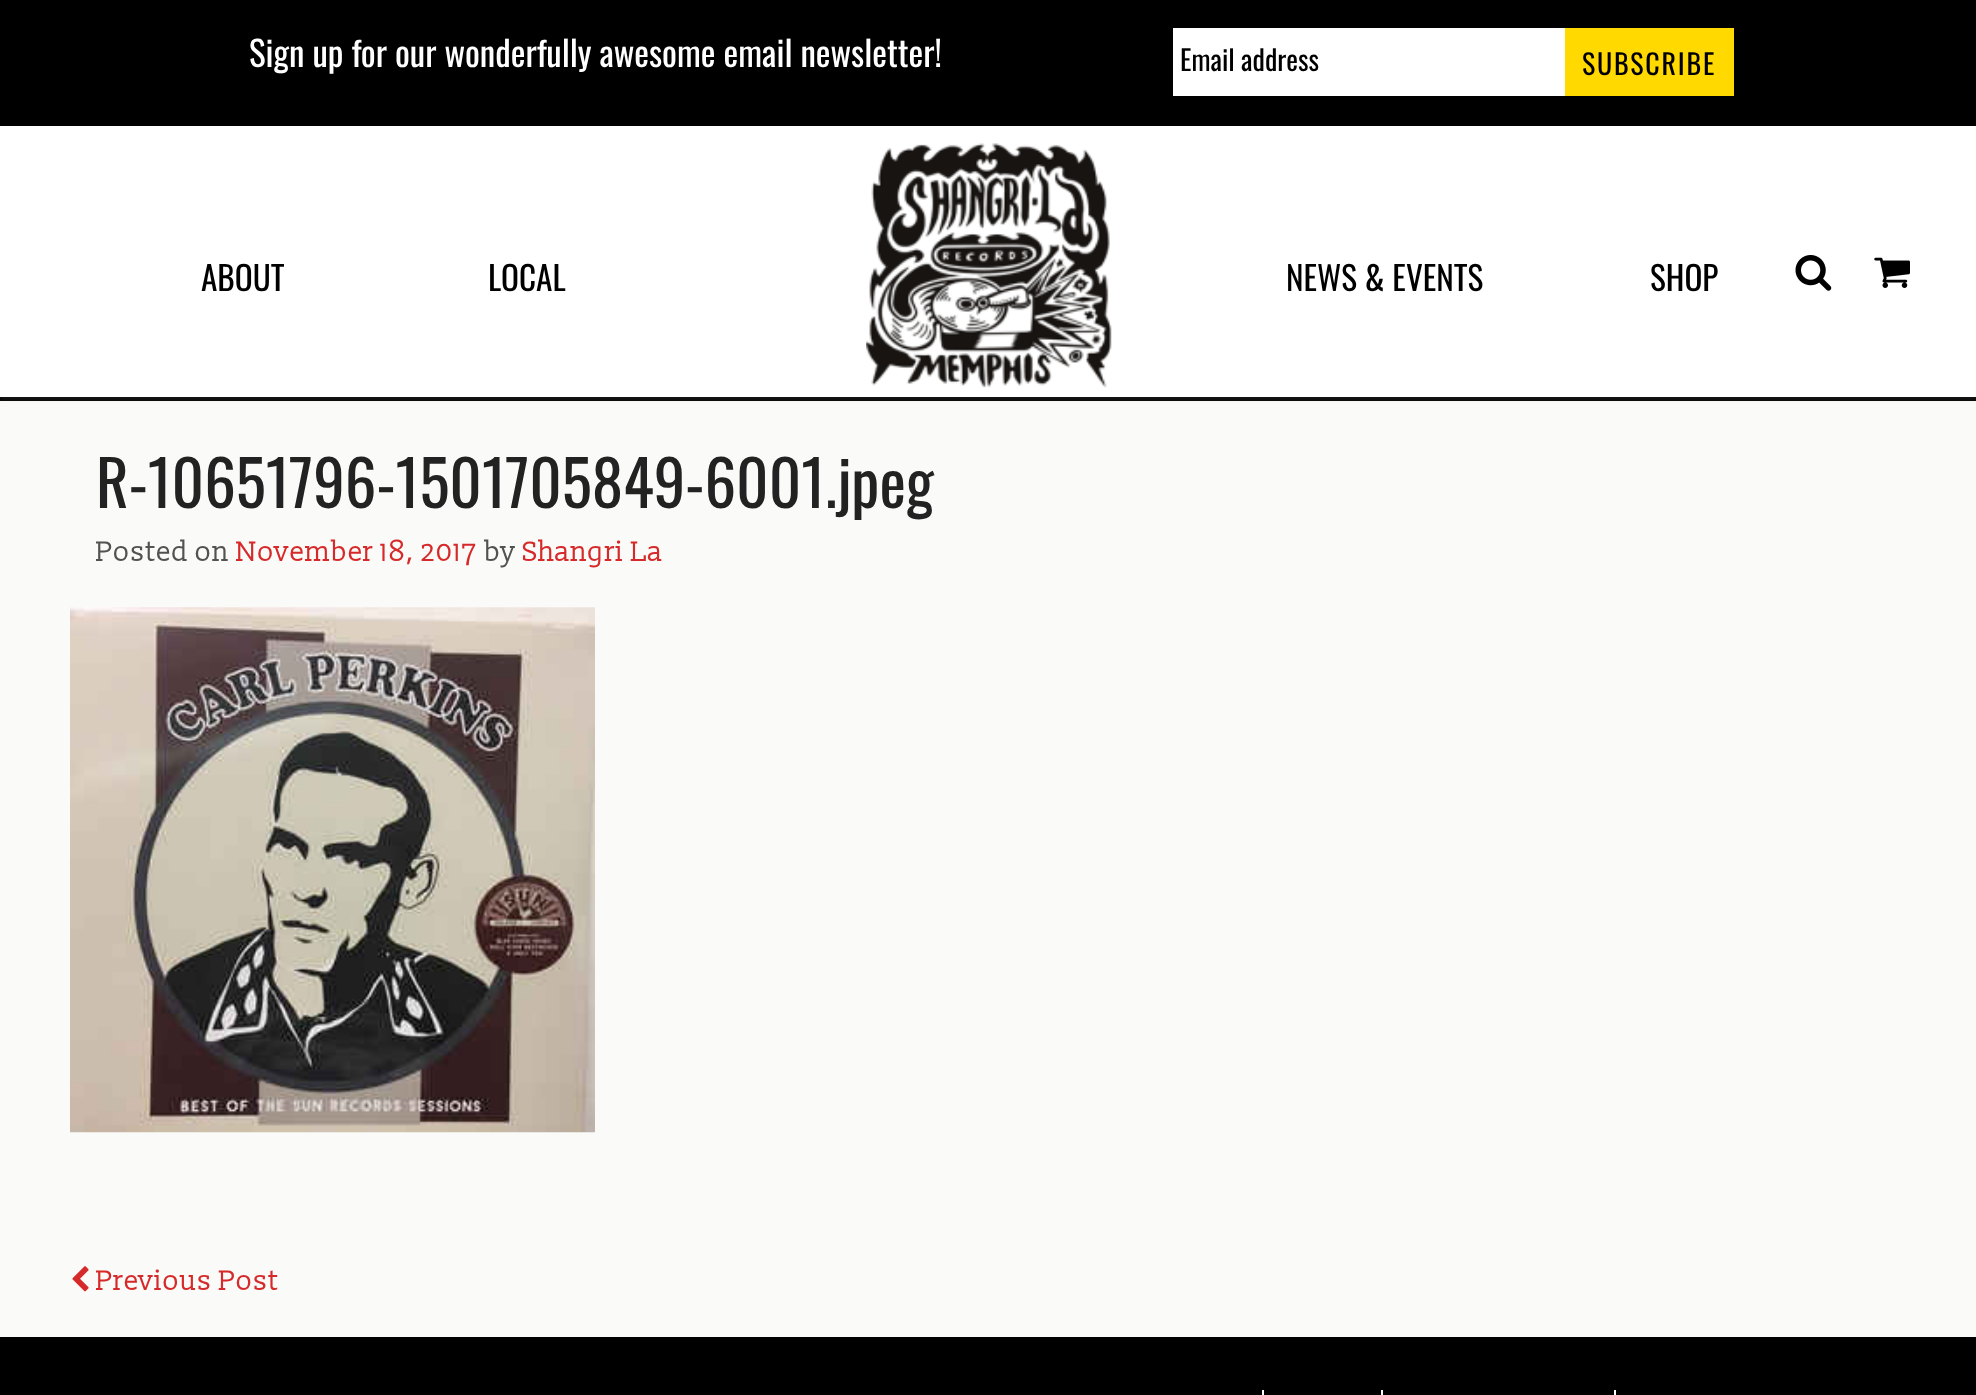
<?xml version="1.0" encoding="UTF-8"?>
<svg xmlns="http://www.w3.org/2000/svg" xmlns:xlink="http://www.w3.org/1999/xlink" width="1976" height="1395">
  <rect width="100%" height="100%" fill="#fafaf9" />
  <rect y="397" width="1976" height="4" fill="#000000" />
  <rect width="1976" height="126" fill="#000000" />
  <rect x="1173" y="28" width="392" height="68" fill="#ffffff" />
  <rect x="1565" y="28" width="169" height="68" fill="#ffd900" />
  <rect y="130" width="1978" height="271" fill="#bec1c2" fill-opacity="0.1" filter="blur(2px)" />
  <rect y="126" width="1976" height="271" fill="#ffffff" />
  <image x="866" y="143" width="246" height="245" xlink:href="image1.png" />
  <image x="1795" y="255" width="37" height="36" xlink:href="image2.png" />
  <image x="1874" y="257" width="36" height="31" xlink:href="image3.png" />
  <image x="70" y="607" width="525" height="526" xlink:href="image4.png" />
  <image x="72" y="1266" width="17" height="26" xlink:href="image5.png" />
  <rect y="1337" width="1976" height="58" fill="#000000" />
  <rect x="1262" y="1390" width="2" height="5" fill="#ffffff" />
  <rect x="1381" y="1390" width="2" height="5" fill="#ffffff" />
  <rect x="1614" y="1390" width="2" height="5" fill="#ffffff" />
  <text x="249" y="67" style="font-family: Oswald; font-size: 35px; fill: #ffffff">Sign up for our wonderfully awesome email newsletter!</text>
  <text x="1180" y="71" style="font-family: Oswald; font-size: 28px; fill: #000000">Email address</text>
  <text x="1582" y="75" style="font-family: Oswald; font-size: 28px; letter-spacing: 1.75px; fill: #000000">SUBSCRIBE</text>
  <text x="201" y="291" style="font-family: Oswald; font-size: 33.25px; fill: #000000">ABOUT</text>
  <text x="488" y="291" style="font-family: Oswald; font-size: 33.25px; fill: #000000">LOCAL</text>
  <text x="1286" y="291" style="font-family: Oswald; font-size: 33.25px; fill: #000000">NEWS &amp; EVENTS</text>
  <text x="1650" y="291" style="font-family: Oswald; font-size: 33.25px; fill: #000000">SHOP</text>
  <text x="96" y="508" style="font-family: Oswald; font-size: 63px; fill: #222222">R-10651796-1501705849-6001.jpeg</text>
  <text x="96" y="561" style="font-family: 'Slabo 13px'; font-size: 28px; fill: #535252">Posted on</text>
  <text x="236" y="561" style="font-family: 'Slabo 13px'; font-size: 28px; fill: #d62929">November 18, 2017</text>
  <text x="484" y="561" style="font-family: 'Slabo 13px'; font-size: 28px; fill: #535252">by</text>
  <text x="523" y="561" style="font-family: 'Slabo 13px'; font-size: 28px; fill: #d62929">Shangri La</text>
  <text x="96" y="1290" style="font-family: 'Slabo 13px'; font-size: 28px; fill: #d62929">Previous Post</text>
</svg>
